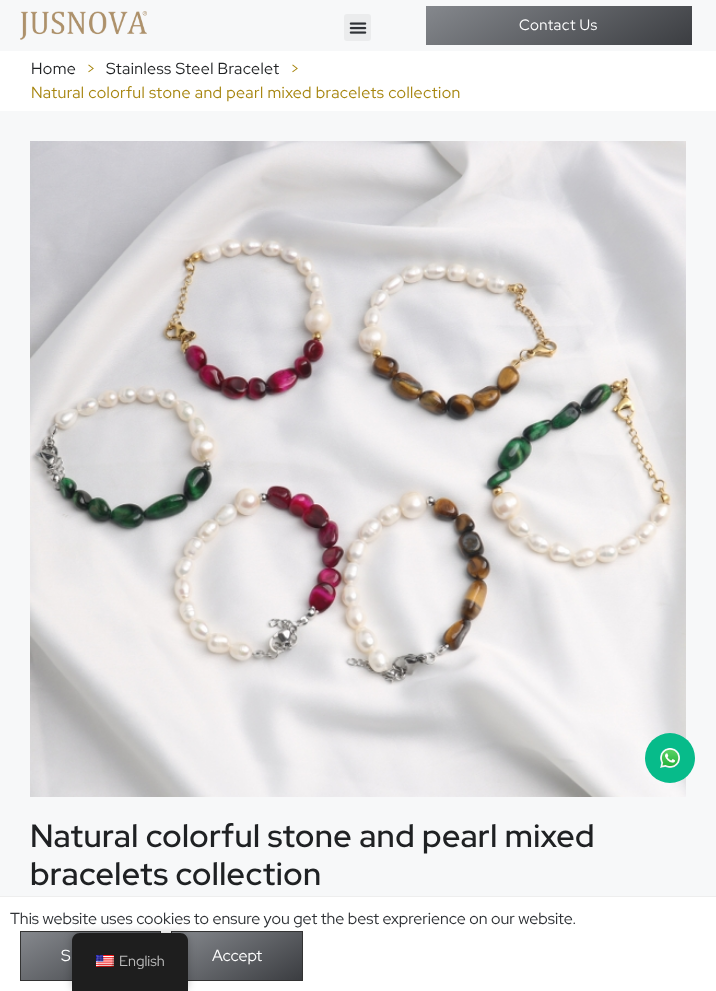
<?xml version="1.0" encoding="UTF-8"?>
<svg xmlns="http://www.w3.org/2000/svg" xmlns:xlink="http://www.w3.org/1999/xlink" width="716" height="991">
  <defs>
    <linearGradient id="g1" gradientUnits="userSpaceOnUse" x1="517" y1="-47" x2="601" y2="98"><stop offset="0" stop-color="#85888d" /><stop offset="1" stop-color="#3b3d41" /></linearGradient>
    <linearGradient id="g2" gradientUnits="userSpaceOnUse" x1="63" y1="908" x2="118" y2="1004"><stop offset="0" stop-color="#85888d" /><stop offset="1" stop-color="#3b3d41" /></linearGradient>
    <linearGradient id="g3" gradientUnits="userSpaceOnUse" x1="210" y1="910" x2="264" y2="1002"><stop offset="0" stop-color="#85888d" /><stop offset="1" stop-color="#3b3d41" /></linearGradient>
  </defs>
  <rect width="100%" height="100%" fill="#f7f8f9" />
  <image x="20" y="11" width="127" height="29" xlink:href="image1.png" />
  <rect x="344" y="14" width="27" height="27" rx="3" fill="#ebeced" />
  <image x="349" y="22" width="18" height="12" xlink:href="image2.png" />
  <rect x="426" y="6" width="266" height="39" fill="url(#g1)" />
  <rect y="51" width="716" height="60" fill="#ffffff" />
  <image x="30" y="141" width="656" height="656" xlink:href="image3.png" />
  <circle cx="670" cy="758" r="25" fill="#07bb8a" />
  <image x="660" y="748" width="20" height="20" xlink:href="image4.png" />
  <rect y="897" width="716" height="94" fill="#ffffff" />
  <rect y="896" width="716" height="1" fill="#eeeeee" />
  <rect x="21" y="932" width="139" height="48" fill="url(#g2)" />
  <rect x="20.5" y="931.5" width="140" height="49" fill="none" stroke="#333333" />
  <rect x="172" y="932" width="130" height="48" fill="url(#g3)" />
  <rect x="171.5" y="931.5" width="131" height="49" fill="none" stroke="#333333" />
  <rect x="72" y="933" width="116" height="58" rx="8" fill="#000000" fill-opacity="0.25" filter="blur(4px)" />
  <path d="M 80 933 h 100 c 4.5 0 8 3.5 8 8 v 50 h -116 v -50 c 0 -4.5 3.5 -8 8 -8 z" fill="#1e1e1e" />
  <image x="96" y="955" width="18" height="12" xlink:href="image5.png" />
  <text x="519" y="30" style="font-family: Red Hat Display; font-size: 15px; letter-spacing: 0.4px; fill: #ffffff">Contact Us</text>
  <text x="31" y="74" style="font-family: Red Hat Display; font-size: 16px; letter-spacing: 0.4px; fill: #1f2123">Home</text>
  <text x="86" y="74" style="font-family: Red Hat Display; font-size: 16px; letter-spacing: 0.4px; fill: #a78610">&gt;</text>
  <text x="106" y="74" style="font-family: Red Hat Display; font-size: 16px; letter-spacing: 0.4px; fill: #1f2123">Stainless Steel Bracelet</text>
  <text x="290" y="74" style="font-family: Red Hat Display; font-size: 16px; letter-spacing: 0.4px; fill: #a78610">&gt;</text>
  <text x="31" y="98" style="font-family: Red Hat Display; font-size: 16px; letter-spacing: 0.4px; fill: #a78610">Natural colorful stone and pearl mixed bracelets collection</text>
  <text x="30" y="847" style="font-family: Red Hat Display; font-size: 32px; font-weight: 600; letter-spacing: 0.4px; fill: #1f2123">Natural colorful stone and pearl mixed</text>
  <text x="30" y="885" style="font-family: Red Hat Display; font-size: 32px; font-weight: 600; letter-spacing: 0.4px; fill: #1f2123">bracelets collection</text>
  <text x="10" y="924" style="font-family: Red Hat Display; font-size: 16px; fill: #2f3236">This website uses cookies to ensure you get the best exprerience on our website.</text>
  <text x="61" y="961" style="font-family: Red Hat Display; font-size: 16px; fill: #ffffff">S</text>
  <text x="212" y="961" style="font-family: Red Hat Display; font-size: 16px; fill: #ffffff">Accept</text>
  <text x="119" y="966" style="font-family: Red Hat Display; font-size: 14.5px; fill: #bdbdbd">English</text>
</svg>
